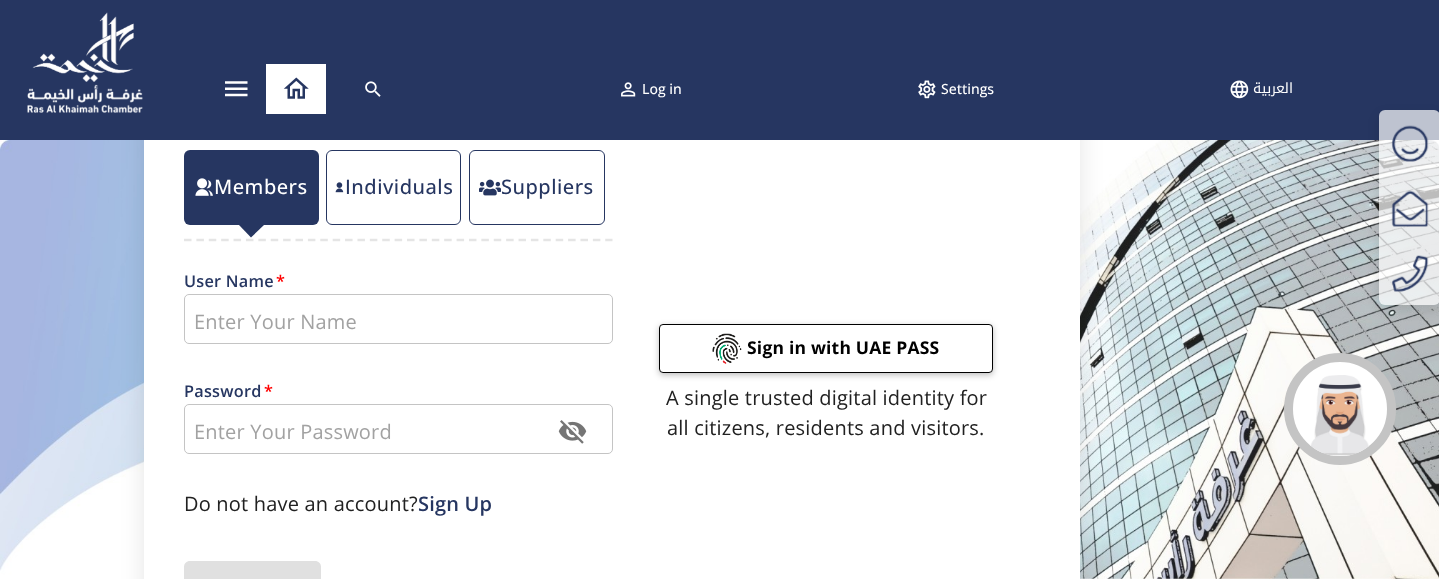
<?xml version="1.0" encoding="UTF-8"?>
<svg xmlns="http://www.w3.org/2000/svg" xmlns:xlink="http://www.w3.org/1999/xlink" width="1439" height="581">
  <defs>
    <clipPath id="clip1"><rect x="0" y="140" width="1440" height="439" /></clipPath>
    <clipPath id="clip2"><path d="M 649 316 h 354 v 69 h -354 z m 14 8 h 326 c 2 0 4 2 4 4 v 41 c 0 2 -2 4 -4 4 h -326 c -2 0 -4 -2 -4 -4 v -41 c 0 -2 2 -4 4 -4 z" clip-rule="evenodd" /></clipPath>
    <clipPath id="clip3"><path d="M 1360 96 h 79 v 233 h -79 z m 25 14 h 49 c 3.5 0 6 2.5 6 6 v 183 c 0 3.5 -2.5 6 -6 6 h -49 c -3.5 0 -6 -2.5 -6 -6 v -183 c 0 -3.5 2.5 -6 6 -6 z" clip-rule="evenodd" /></clipPath>
  </defs>
  <rect width="100%" height="100%" fill="#ffffff" />
  <image x="0" y="140" width="1439" height="439" xlink:href="image8.png" />
  <g clip-path="url(#clip1)">
    <rect x="144" y="78" width="936" height="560" rx="19" fill="#000000" fill-opacity="0.1" filter="blur(12.5px)" />
  </g>
  <rect width="1439" height="140" fill="#263661" />
  <image x="27" y="12" width="116" height="101" xlink:href="image1.png" />
  <image x="225" y="81" width="23" height="16" xlink:href="image2.png" />
  <rect x="266" y="64" width="60" height="50" fill="#ffffff" />
  <image x="283" y="77" width="26" height="22" xlink:href="image3.png" />
  <image x="365" y="81" width="16" height="16" xlink:href="image4.png" />
  <image x="621" y="82" width="15" height="15" xlink:href="image5.png" />
  <image x="918" y="80" width="18" height="19" xlink:href="image6.png" />
  <image x="1230" y="80" width="19" height="19" xlink:href="image7.png" />
  <rect x="144" y="140" width="936" height="439" fill="#ffffff" />
  <rect x="184" y="150" width="135" height="75" rx="6" fill="#263661" />
  <image x="195" y="178" width="18" height="18" xlink:href="image9.png" />
  <path d="M 239 225 h 25 l -13 12.5 z" fill="#263661" />
  <rect x="326.5" y="150.5" width="134" height="74" rx="5.5" fill="none" stroke="#263661" />
  <image x="335" y="182" width="9" height="11" xlink:href="image10.png" />
  <rect x="469.5" y="150.5" width="135" height="74" rx="5.5" fill="none" stroke="#263661" />
  <image x="479" y="179" width="22" height="17" xlink:href="image11.png" />
  <path d="M 184 240 h 428.5" fill="none" stroke="#e5e5e5" stroke-width="2.5" stroke-dasharray="7.5 4.89" />
  <rect x="184.5" y="294.5" width="428" height="49" rx="4.5" fill="none" stroke="#c4c4c4" />
  <image x="558" y="420" width="29" height="24" xlink:href="image12.png" />
  <rect x="184.5" y="404.5" width="428" height="49" rx="4.5" fill="none" stroke="#c4c4c4" />
  <path d="M 190 561 h 125 c 3.5 0 6 2.5 6 6 v 12 h -137 v -12 c 0 -3.5 2.5 -6 6 -6 z" fill="#e0e0e0" />
  <g clip-path="url(#clip2)">
    <rect x="659" y="326" width="334" height="49" rx="4" fill="#000000" fill-opacity="0.26" filter="blur(3px)" />
  </g>
  <rect x="659.5" y="324.5" width="333" height="48" rx="3.5" fill="none" stroke="#000000" />
  <image x="712" y="333" width="30" height="31" xlink:href="image13.png" />
  <g clip-path="url(#clip3)">
    <rect x="1379" y="115" width="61" height="195" rx="6" fill="#000000" fill-opacity="0.1" filter="blur(6px)" />
  </g>
  <rect x="1379" y="110" width="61" height="195" rx="6" fill="#ffffff" fill-opacity="0.7" />
  <image x="1391" y="125" width="38" height="37" xlink:href="image14.png" />
  <image x="1391" y="190" width="38" height="37" xlink:href="image15.png" />
  <image x="1391" y="255" width="38" height="37" xlink:href="image16.png" />
  <circle cx="1340" cy="409" r="51.5" fill="#ffffff" stroke="#c4c4c4" stroke-width="9" />
  <image x="1310" y="375" width="59" height="81" xlink:href="image17.png" />
  <text x="642" y="94" style="font-family: Open Sans; font-size: 14px; font-weight: 500; fill: #ffffff">Log in</text>
  <text x="941" y="94" style="font-family: Open Sans; font-size: 14px; font-weight: 500; fill: #ffffff">Settings</text>
  <text x="1293" y="93" style="font-family: Noto Kufi Arabic; font-size: 14px; direction: rtl; fill: #ffffff">العربية</text>
  <text x="214" y="194" style="font-family: Open Sans; font-size: 20px; font-weight: 500; letter-spacing: 0.5px; fill: #ffffff">Members</text>
  <text x="345" y="194" style="font-family: Open Sans; font-size: 20px; font-weight: 500; letter-spacing: 0.5px; fill: #263661">Individuals</text>
  <text x="501" y="194" style="font-family: Open Sans; font-size: 20px; font-weight: 500; letter-spacing: 0.5px; fill: #263661">Suppliers</text>
  <text x="184" y="287" style="font-family: Open Sans; font-size: 16.25px; font-weight: 600; letter-spacing: 0.25px; fill: #263661">User Name</text>
  <text x="276" y="287" style="font-family: Open Sans; font-size: 16.25px; font-weight: 600; letter-spacing: 0.25px; fill: #ff0000">*</text>
  <text x="194" y="329" style="font-family: Open Sans; font-size: 20px; letter-spacing: 0.2px; fill: #a2a2a2">Enter Your Name</text>
  <text x="184" y="397" style="font-family: Open Sans; font-size: 16.25px; font-weight: 600; letter-spacing: 0.25px; fill: #263661">Password</text>
  <text x="264" y="397" style="font-family: Open Sans; font-size: 16.25px; font-weight: 600; letter-spacing: 0.25px; fill: #ff0000">*</text>
  <text x="194" y="439" style="font-family: Open Sans; font-size: 20px; letter-spacing: 0.2px; fill: #a2a2a2">Enter Your Password</text>
  <text x="184" y="511" style="font-family: Open Sans; font-size: 20px; letter-spacing: 0.2px; fill: #212121">Do not have an account?</text>
  <text x="418" y="511" style="font-family: Open Sans; font-size: 20px; font-weight: 600; letter-spacing: 0.2px; fill: #263661">Sign Up</text>
  <text x="747" y="354" style="font-family: Open Sans; font-size: 17.5px; font-weight: bold; letter-spacing: 0.2px; fill: #000000">Sign in with UAE PASS</text>
  <text x="666" y="405" style="font-family: Open Sans; font-size: 20px; letter-spacing: 0.2px; fill: #212121">A single trusted digital identity for</text>
  <text x="667" y="435" style="font-family: Open Sans; font-size: 20px; letter-spacing: 0.2px; fill: #212121">all citizens, residents and visitors.</text>
</svg>
